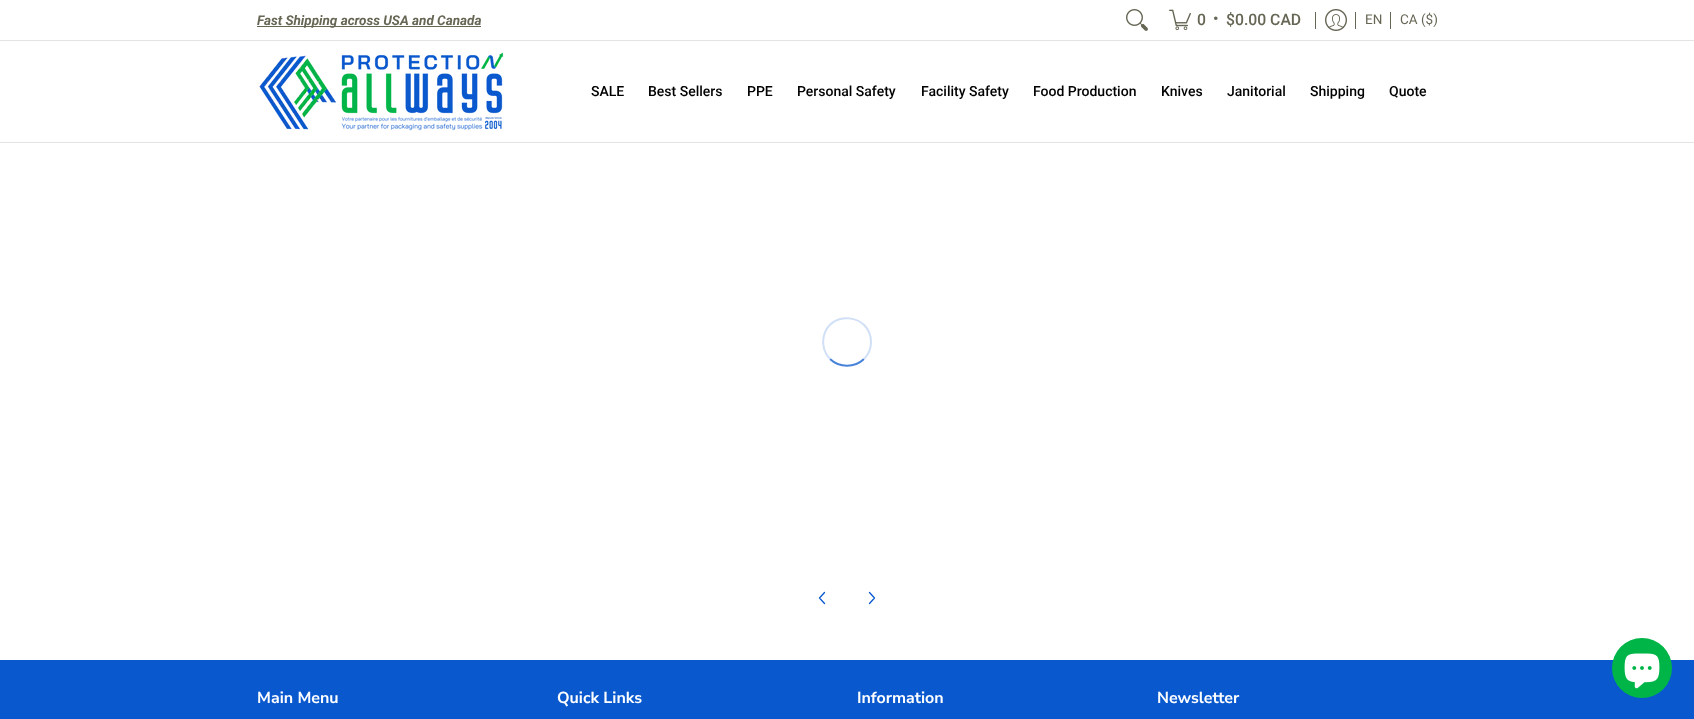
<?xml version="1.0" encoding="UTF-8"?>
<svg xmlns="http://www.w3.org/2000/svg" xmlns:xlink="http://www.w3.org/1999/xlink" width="1694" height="719">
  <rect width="100%" height="100%" fill="#ffffff" />
  <rect y="40" width="1694" height="1" fill="#e4e4e4" />
  <rect x="257" y="26" width="224" height="1" fill="#666655" />
  <image x="1126" y="9" width="22" height="22" xlink:href="image1.png" />
  <image x="1169" y="9" width="22" height="22" xlink:href="image2.png" />
  <rect x="1315" y="12" width="1" height="17" fill="#666655" />
  <image x="1325" y="9" width="22" height="22" xlink:href="image3.png" />
  <rect x="1355" y="12" width="1" height="17" fill="#666655" />
  <rect x="1390" y="12" width="1" height="17" fill="#666655" />
  <rect y="142" width="1694" height="1" fill="#e4e4e4" />
  <image x="259" y="52" width="245" height="79" xlink:href="image4.png" />
  <path d="M 864 359 c -9.5 9 -24.5 9 -34 0" fill="none" stroke="#4782da" stroke-width="2" />
  <path d="M 830 359 c -5.5 -5.5 -8 -14 -6.5 -21.5 c 5.5 -28.5 47.5 -24 47.5 4.5 c 0 6.5 -2.5 12.5 -7 17" fill="none" stroke="#d1e0f6" stroke-width="2" />
  <path d="M 824.5 592.5 l -5 5.5 l 5 5.5 m 45 0 l 5 -5.5 l -5 -5.5" fill="none" stroke="#0958ce" stroke-width="1.3" stroke-linecap="round" stroke-linejoin="round" />
  <rect y="660" width="1694" height="59" fill="#0958ce" />
  <circle cx="1642" cy="668" r="30" fill="#00b548" />
  <image x="1624" y="653" width="36" height="36" xlink:href="image5.png" />
  <text x="257" y="25" style="font-family: Roboto; font-size: 13.5px; font-weight: bold; font-style: italic; fill: #666655">Fast Shipping across USA and Canada</text>
  <text x="1197" y="25" style="font-family: Roboto; font-size: 15.75px; font-weight: 500; fill: #666655">0</text>
  <text x="1213" y="24" style="font-family: Roboto; font-size: 15.75px; font-weight: 500; fill: #666655">•</text>
  <text x="1226" y="25" style="font-family: Roboto; font-size: 15.75px; font-weight: 500; fill: #666655">$0.00 CAD</text>
  <text x="1365" y="24" style="font-family: Roboto; font-size: 13.5px; fill: #666655">EN</text>
  <text x="1400" y="24" style="font-family: Roboto; font-size: 13.5px; fill: #666655">CA ($)</text>
  <text x="591" y="96" style="font-family: Roboto; font-size: 14px; font-weight: 500; fill: #000000">SALE</text>
  <text x="648" y="96" style="font-family: Roboto; font-size: 14px; font-weight: 500; fill: #000000">Best Sellers</text>
  <text x="747" y="96" style="font-family: Roboto; font-size: 14px; font-weight: 500; fill: #000000">PPE</text>
  <text x="797" y="96" style="font-family: Roboto; font-size: 14px; font-weight: 500; fill: #000000">Personal Safety</text>
  <text x="921" y="96" style="font-family: Roboto; font-size: 14px; font-weight: 500; fill: #000000">Facility Safety</text>
  <text x="1033" y="96" style="font-family: Roboto; font-size: 14px; font-weight: 500; fill: #000000">Food Production</text>
  <text x="1161" y="96" style="font-family: Roboto; font-size: 14px; font-weight: 500; fill: #000000">Knives</text>
  <text x="1227" y="96" style="font-family: Roboto; font-size: 14px; font-weight: 500; fill: #000000">Janitorial</text>
  <text x="1310" y="96" style="font-family: Roboto; font-size: 14px; font-weight: 500; fill: #000000">Shipping</text>
  <text x="1389" y="96" style="font-family: Roboto; font-size: 14px; font-weight: 500; fill: #000000">Quote</text>
  <text x="257" y="703" style="font-family: Nunito Sans; font-size: 16px; font-weight: bold; fill: #ffffff">Main Menu</text>
  <text x="557" y="703" style="font-family: Nunito Sans; font-size: 16px; font-weight: bold; fill: #ffffff">Quick Links</text>
  <text x="857" y="703" style="font-family: Nunito Sans; font-size: 16px; font-weight: bold; fill: #ffffff">Information</text>
  <text x="1157" y="703" style="font-family: Nunito Sans; font-size: 16px; font-weight: bold; fill: #ffffff">Newsletter</text>
</svg>
